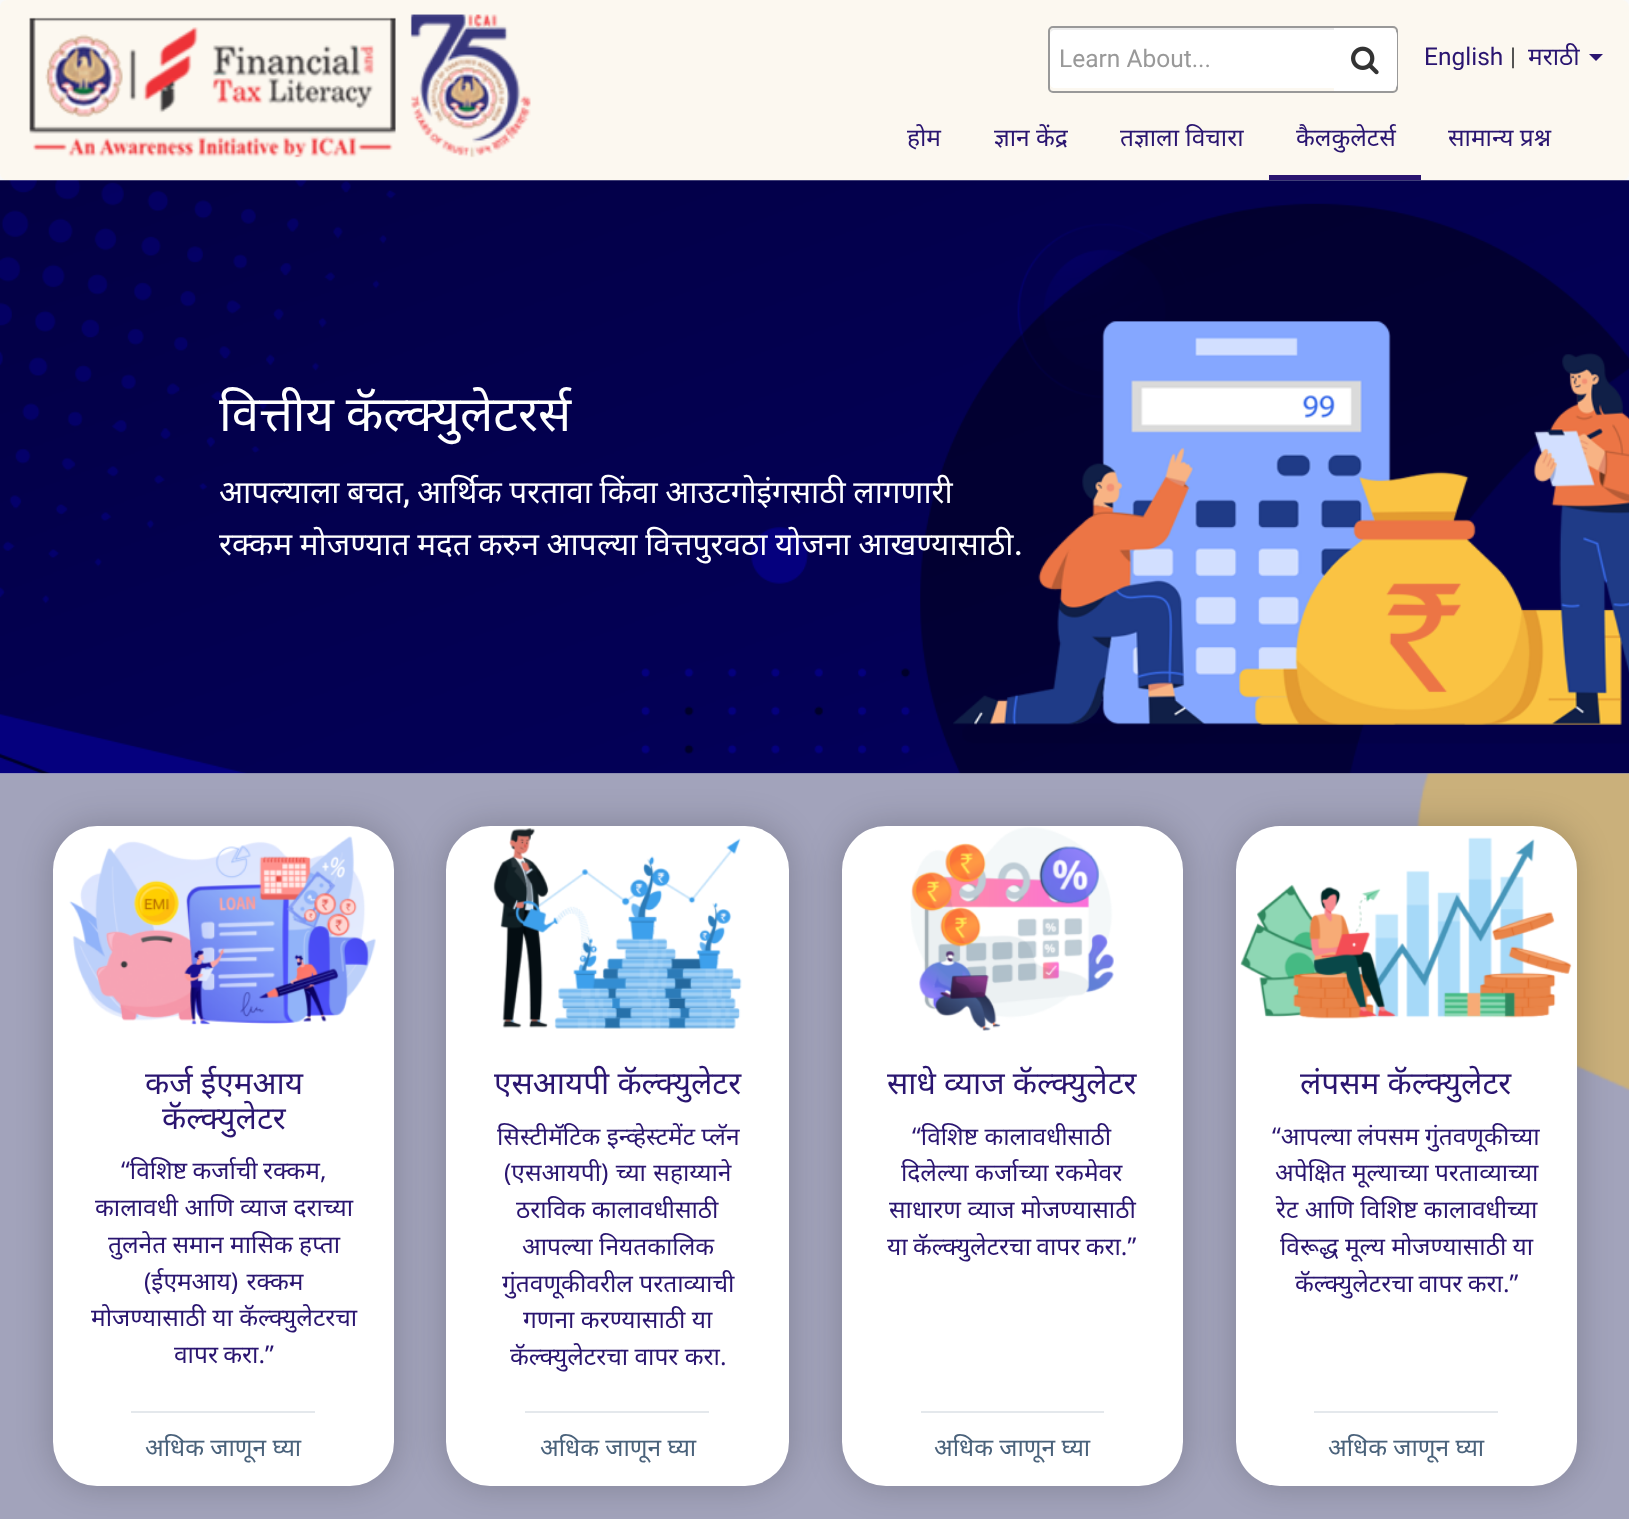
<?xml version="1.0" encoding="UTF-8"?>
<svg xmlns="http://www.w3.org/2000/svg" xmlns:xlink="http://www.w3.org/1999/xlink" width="1629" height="1519">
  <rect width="100%" height="100%" fill="#f9f9f9" />
  <rect width="1629" height="180" rx="7" fill="#fcf8f0" />
  <image x="29" y="14" width="502" height="144" xlink:href="image1.png" />
  <rect x="1049" y="27" width="348" height="65" rx="4" fill="none" stroke="#999999" stroke-width="2" />
  <path d="M 1055 28 h 280 v 60 h -280 c -3 0 -5 -2 -5 -5 v -50 c 0 -3 2 -5 5 -5 z" fill="#ffffff" />
  <path d="M 1055 30 h 280 v -2 h -281 c -4 1 -4 4 -4 7 c 0 -3 2 -5 5 -5 z" fill="#000000" fill-opacity="0.07" />
  <path d="M 1334 28 h 56 c 4 0 7 3 7 7 v 49 c 0 4 -3 7 -7 7 h -56 z" fill="#ffffff" />
  <image x="1351" y="46" width="28" height="29" xlink:href="image2.png" />
  <path d="M 1589 54 h 14 l -7 7 z" fill="#2a1570" />
  <rect x="1269" y="175" width="152" height="5" fill="#2a1570" />
  <image x="0" y="180" width="1629" height="594" xlink:href="image3.png" />
  <image x="0" y="773" width="1629" height="746" xlink:href="image4.png" />
  <rect x="53" y="826" width="341" height="660" rx="44" fill="#000000" fill-opacity="0.2" filter="blur(17.5px)" />
  <rect x="53" y="826" width="341" height="660" rx="44" fill="#ffffff" />
  <image x="69" y="836" width="307" height="189" xlink:href="image5.png" />
  <rect x="131" y="1411" width="184" height="2" fill="#e4e8ec" />
  <rect x="446" y="826" width="343" height="660" rx="44" fill="#000000" fill-opacity="0.2" filter="blur(17.5px)" />
  <rect x="446" y="826" width="343" height="660" rx="44" fill="#ffffff" />
  <image x="493" y="828" width="249" height="201" xlink:href="image6.png" />
  <rect x="525" y="1411" width="184" height="2" fill="#e4e8ec" />
  <rect x="842" y="826" width="341" height="660" rx="44" fill="#000000" fill-opacity="0.2" filter="blur(17.5px)" />
  <rect x="842" y="826" width="341" height="660" rx="44" fill="#ffffff" />
  <image x="910" y="827" width="204" height="204" xlink:href="image7.png" />
  <rect x="921" y="1411" width="183" height="2" fill="#e4e8ec" />
  <rect x="1236" y="826" width="341" height="660" rx="44" fill="#000000" fill-opacity="0.2" filter="blur(17.5px)" />
  <rect x="1236" y="826" width="341" height="660" rx="44" fill="#ffffff" />
  <image x="1240" y="837" width="332" height="182" xlink:href="image8.png" />
  <rect x="1314" y="1411" width="184" height="2" fill="#e4e8ec" />
  <text x="1059" y="67" style="font-family: Roboto; font-size: 24.5px; fill: #999999">Learn About...</text>
  <text x="1424" y="65" style="font-family: Roboto; font-size: 24.5px; fill: #2a1570">English</text>
  <text x="1510" y="65" style="font-family: Roboto; font-size: 24.5px; fill: #404040">|</text>
  <text x="1528" y="65" style="font-family: Noto Sans; font-size: 24.5px; fill: #2a1570">मराठी</text>
  <text x="907" y="146" style="font-family: Noto Sans; font-size: 24.5px; fill: #2a1570">होम</text>
  <text x="994" y="146" style="font-family: Noto Sans; font-size: 24.5px; fill: #2a1570">ज्ञान केंद्र</text>
  <text x="1120" y="146" style="font-family: Noto Sans; font-size: 24.5px; fill: #2a1570">तज्ञाला विचारा</text>
  <text x="1296" y="146" style="font-family: Noto Sans; font-size: 24.5px; fill: #2a1570">कैलकुलेटर्स</text>
  <text x="1448" y="146" style="font-family: Noto Sans; font-size: 24.5px; fill: #2a1570">सामान्य प्रश्न</text>
  <text x="219" y="431" word-spacing="-1" style="font-family: Noto Sans; font-size: 49px; fill: #ffffff">वित्तीय कॅल्क्युलेटर</text>
  <text x="538" y="431" style="font-family: Noto Sans; font-size: 49px; fill: #ffffff">र्स</text>
  <text x="219" y="503" word-spacing="-0.5" style="font-family: Noto Sans; font-size: 31.5px; fill: #ffffff">आपल्याला बचत</text>
  <text x="403" y="503" style="font-family: Roboto; font-size: 31.5px; font-weight: 500; fill: #ffffff">,</text>
  <text x="417" y="503" word-spacing="-0.5" style="font-family: Noto Sans; font-size: 31.5px; fill: #ffffff">आर्थिक परतावा किंवा आउटगोइंगसाठी लागणारी</text>
  <text x="219" y="555" word-spacing="-0.5" style="font-family: Noto Sans; font-size: 31.5px; fill: #ffffff">रक्कम मोजण्यात मदत करुन आपल्या वित्तपुरवठा योजना आखण्यासाठी</text>
  <text x="1014" y="555" style="font-family: Roboto; font-size: 31.5px; font-weight: 500; fill: #ffffff">.</text>
  <text x="145" y="1094" style="font-family: Noto Sans; font-size: 31.5px; fill: #2a1570">कर्ज ईएमआय</text>
  <text x="162" y="1129" style="font-family: Noto Sans; font-size: 31.5px; fill: #2a1570">कॅल्क्युलेटर</text>
  <text x="121" y="1179" word-spacing="-1" style="font-family: Noto Sans; font-size: 24.5px; fill: #2a1570">“विशिष्ट कर्जाची रक्कम,</text>
  <text x="95" y="1216" style="font-family: Noto Sans; font-size: 24.5px; fill: #2a1570">कालावधी आणि व्याज दराच्या</text>
  <text x="108" y="1253" style="font-family: Noto Sans; font-size: 24.5px; fill: #2a1570">तुलनेत समान मासिक हप्ता</text>
  <text x="144" y="1290" word-spacing="2" style="font-family: Noto Sans; font-size: 24.5px; fill: #2a1570">(ईएमआय) रक्कम</text>
  <text x="91" y="1326" style="font-family: Noto Sans; font-size: 24.5px; fill: #2a1570">मोजण्यासाठी या कॅल्क्युलेटरचा</text>
  <text x="174" y="1363" word-spacing="-1" style="font-family: Noto Sans; font-size: 24.5px; fill: #2a1570">वापर करा.”</text>
  <text x="145" y="1456" style="font-family: Noto Sans; font-size: 24.5px; fill: #4a627b">अधिक जाणून घ्या</text>
  <text x="494" y="1094" style="font-family: Noto Sans; font-size: 31.5px; fill: #2a1570">एसआयपी कॅल्क्युलेटर</text>
  <text x="497" y="1145" style="font-family: Noto Sans; font-size: 24.5px; fill: #2a1570">सिस्टीमॅटिक इन्व्हेस्टमेंट प्लॅन</text>
  <text x="504" y="1181" word-spacing="1" style="font-family: Noto Sans; font-size: 24.5px; fill: #2a1570">(एसआयपी) च्या सहाय्याने</text>
  <text x="516" y="1218" style="font-family: Noto Sans; font-size: 24.5px; fill: #2a1570">ठराविक कालावधीसाठी</text>
  <text x="522" y="1255" style="font-family: Noto Sans; font-size: 24.5px; fill: #2a1570">आपल्या नियतकालिक</text>
  <text x="502" y="1292" style="font-family: Noto Sans; font-size: 24.5px; fill: #2a1570">गुंतवणूकीवरील परताव्याची</text>
  <text x="523" y="1328" style="font-family: Noto Sans; font-size: 24.5px; fill: #2a1570">गणना करण्यासाठी या</text>
  <text x="510" y="1365" style="font-family: Noto Sans; font-size: 24.5px; fill: #2a1570">कॅल्क्युलेटरचा वापर करा.</text>
  <text x="540" y="1456" style="font-family: Noto Sans; font-size: 24.5px; fill: #4a627b">अधिक जाणून घ्या</text>
  <text x="887" y="1094" style="font-family: Noto Sans; font-size: 31.5px; fill: #2a1570">साधे व्याज कॅल्क्युलेटर</text>
  <text x="912" y="1145" style="font-family: Noto Sans; font-size: 24.5px; fill: #2a1570">“विशिष्ट कालावधीसाठी</text>
  <text x="901" y="1181" style="font-family: Noto Sans; font-size: 24.5px; fill: #2a1570">दिलेल्या कर्जाच्या रकमेवर</text>
  <text x="889" y="1218" style="font-family: Noto Sans; font-size: 24.5px; fill: #2a1570">साधारण व्याज मोजण्यासाठी</text>
  <text x="887" y="1255" word-spacing="-1" style="font-family: Noto Sans; font-size: 24.5px; fill: #2a1570">या कॅल्क्युलेटरचा वापर करा.”</text>
  <text x="934" y="1456" style="font-family: Noto Sans; font-size: 24.5px; fill: #4a627b">अधिक जाणून घ्या</text>
  <text x="1300" y="1094" style="font-family: Noto Sans; font-size: 31.5px; fill: #2a1570">लंपसम कॅल्क्युलेटर</text>
  <text x="1272" y="1145" word-spacing="-0.5" style="font-family: Noto Sans; font-size: 24.5px; fill: #2a1570">“आपल्या लंपसम गुंतवणूकीच्या</text>
  <text x="1275" y="1181" style="font-family: Noto Sans; font-size: 24.5px; fill: #2a1570">अपेक्षित मूल्याच्या परताव्याच्या</text>
  <text x="1276" y="1218" style="font-family: Noto Sans; font-size: 24.5px; fill: #2a1570">रेट आणि विशिष्ट कालावधीच्या</text>
  <text x="1280" y="1255" style="font-family: Noto Sans; font-size: 24.5px; fill: #2a1570">विरूद्ध मूल्य मोजण्यासाठी या</text>
  <text x="1295" y="1292" word-spacing="-1" style="font-family: Noto Sans; font-size: 24.5px; fill: #2a1570">कॅल्क्युलेटरचा वापर करा.”</text>
  <text x="1328" y="1456" style="font-family: Noto Sans; font-size: 24.5px; fill: #4a627b">अधिक जाणून घ्या</text>
</svg>
